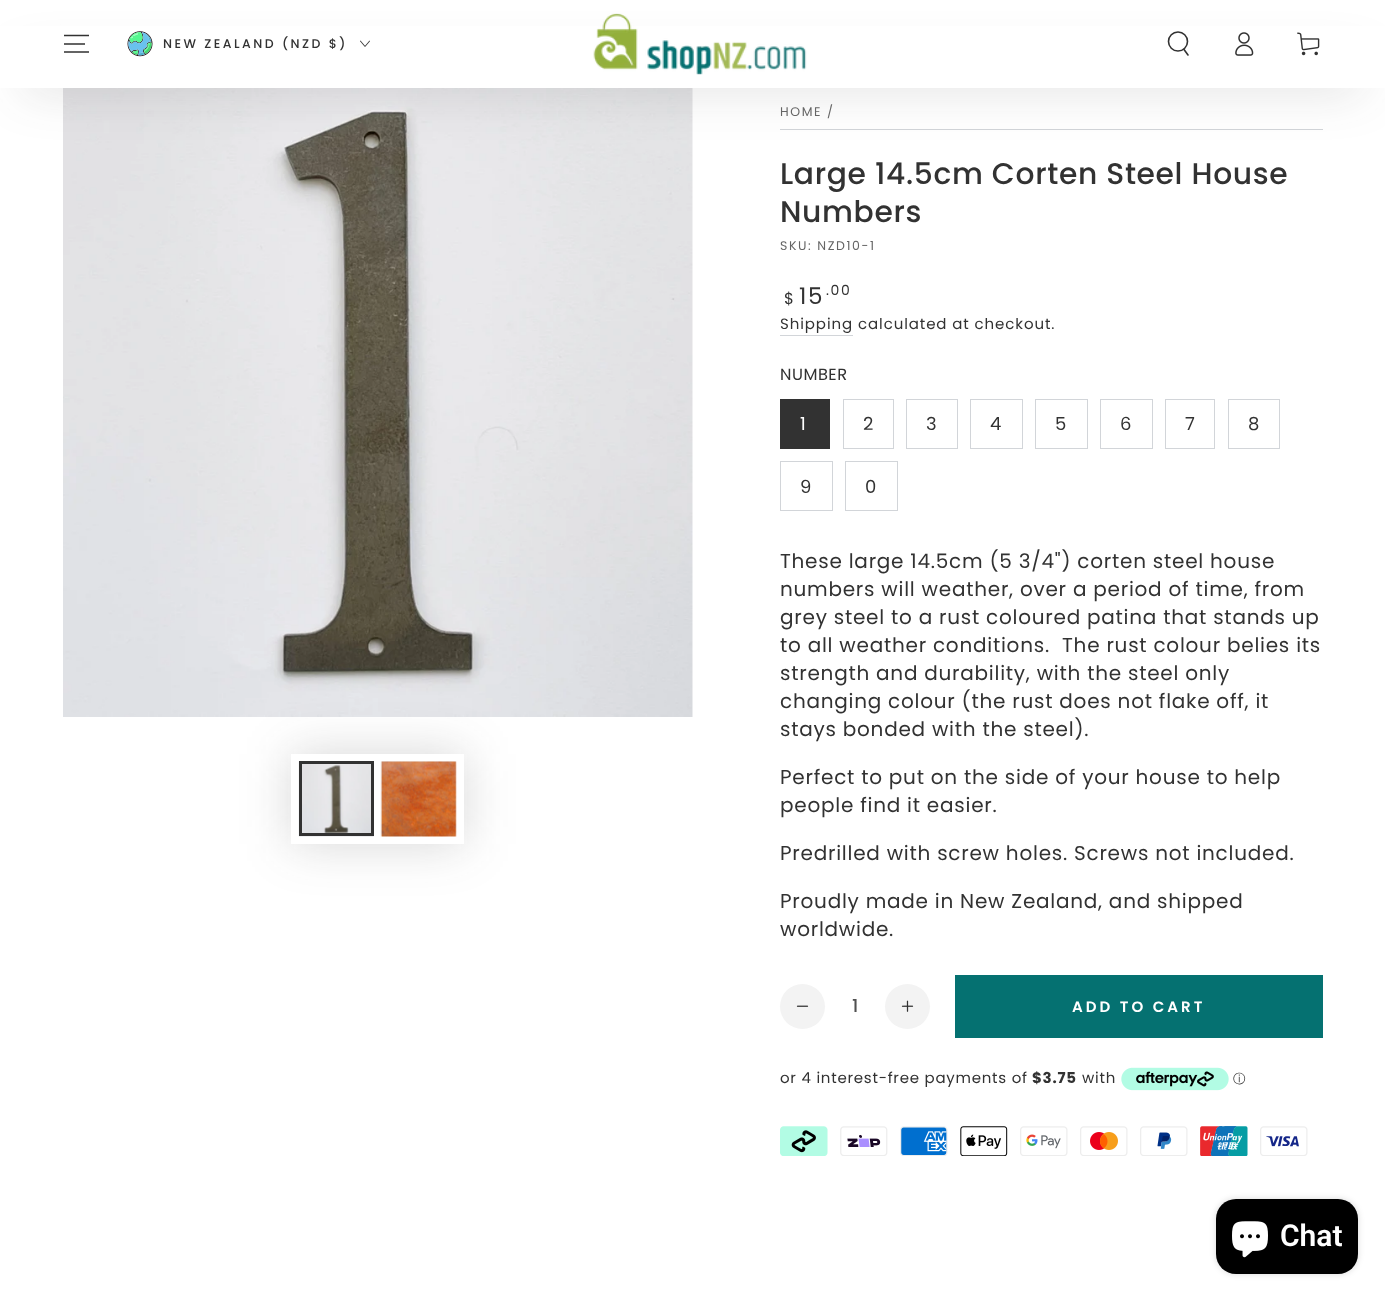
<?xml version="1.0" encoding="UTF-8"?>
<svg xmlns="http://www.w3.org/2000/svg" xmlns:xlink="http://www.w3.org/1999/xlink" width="1385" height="1299">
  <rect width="100%" height="100%" fill="#ffffff" />
  <image x="63" y="88" width="630" height="629" xlink:href="image6.png" />
  <rect x="780" y="129" width="543" height="1" fill="#d2d5d9" />
  <rect x="19" y="63" width="1347" height="25" rx="12.5" fill="#323232" fill-opacity="0.2" filter="blur(25px)" />
  <rect y="26" width="1385" height="62" fill="#ffffff" />
  <image x="593" y="13" width="214" height="62" xlink:href="image1.png" />
  <path d="M 64 52 h 25 m -25 -8 h 21 m -21 -8.5 h 25" fill="none" stroke="#323232" stroke-width="1.4" />
  <image x="127" y="31" width="26" height="26" xlink:href="image2.png" />
  <image x="360" y="40" width="10" height="7" xlink:href="image3.png" />
  <circle cx="1178" cy="41.5" r="9.5" fill="none" stroke="#323232" stroke-width="1.6" />
  <path d="M 1184 49.5 l 4 5.5" fill="none" stroke="#323232" stroke-width="1.6" stroke-linecap="round" />
  <image x="1235" y="32" width="19" height="24" xlink:href="image4.png" />
  <image x="1297" y="32" width="23" height="24" xlink:href="image5.png" />
  <rect x="291" y="754" width="173" height="90" fill="#323232" fill-opacity="0.2" filter="blur(25px)" />
  <rect x="291" y="754" width="173" height="90" fill="#ffffff" />
  <image x="298" y="761" width="76" height="76" xlink:href="image7.png" />
  <rect x="300.5" y="762.5" width="72" height="72" fill="none" stroke="#323232" stroke-width="3" />
  <image x="380" y="761" width="77" height="76" xlink:href="image8.png" />
  <rect x="381.5" y="761.5" width="74" height="74" fill="none" stroke="#323232" stroke-opacity="0.04" />
  <rect x="780" y="335" width="73" height="1" fill="#d2d5d9" />
  <rect x="780" y="399" width="50" height="50" fill="#323232" />
  <rect x="843.5" y="399.5" width="50" height="49" fill="none" stroke="#d2d5d9" />
  <rect x="906.5" y="399.5" width="51" height="49" fill="none" stroke="#d2d5d9" />
  <rect x="970.5" y="399.5" width="52" height="49" fill="none" stroke="#d2d5d9" />
  <rect x="1035.5" y="399.5" width="52" height="49" fill="none" stroke="#d2d5d9" />
  <rect x="1100.5" y="399.5" width="52" height="49" fill="none" stroke="#d2d5d9" />
  <rect x="1165.5" y="399.5" width="49" height="49" fill="none" stroke="#d2d5d9" />
  <rect x="1228.5" y="399.5" width="51" height="49" fill="none" stroke="#d2d5d9" />
  <rect x="780.5" y="461.5" width="52" height="49" fill="none" stroke="#d2d5d9" />
  <rect x="845.5" y="461.5" width="52" height="49" fill="none" stroke="#d2d5d9" />
  <circle cx="802.5" cy="1006.5" r="22.5" fill="#f3f3f3" />
  <image x="796" y="1005" width="13" height="2" xlink:href="image9.png" />
  <circle cx="907.5" cy="1006.5" r="22.5" fill="#f3f3f3" />
  <image x="901" y="1000" width="13" height="12" xlink:href="image10.png" />
  <rect x="955" y="975" width="368" height="63" fill="#057171" />
  <image x="1121" y="1067" width="108" height="24" xlink:href="image11.png" />
  <image x="780" y="1126" width="48" height="30" xlink:href="image12.png" />
  <image x="840" y="1126" width="48" height="30" xlink:href="image13.png" />
  <image x="900" y="1126" width="48" height="30" xlink:href="image14.png" />
  <image x="960" y="1126" width="48" height="30" xlink:href="image15.png" />
  <image x="1020" y="1126" width="48" height="30" xlink:href="image16.png" />
  <image x="1080" y="1126" width="48" height="30" xlink:href="image17.png" />
  <image x="1140" y="1126" width="48" height="30" xlink:href="image18.png" />
  <image x="1200" y="1126" width="48" height="30" xlink:href="image19.png" />
  <image x="1260" y="1126" width="48" height="30" xlink:href="image20.png" />
  <rect x="1216" y="1199" width="142" height="75" rx="20" fill="#000000" fill-opacity="0.15" filter="blur(3px)" />
  <rect x="1216" y="1199" width="142" height="75" rx="20" fill="#000000" />
  <image x="1232" y="1221" width="36" height="37" xlink:href="image21.png" />
  <text x="163" y="48" style="font-family: Poppins; font-size: 12.5px; font-weight: 500; letter-spacing: 2.5px; fill: #323232">NEW ZEALAND (NZD $)</text>
  <text x="780" y="116" style="font-family: Poppins; font-size: 12.5px; letter-spacing: 1.6px; fill: #656565">HOME</text>
  <text x="827" y="116" style="font-family: Poppins; font-size: 12.5px; letter-spacing: 1.6px; fill: #656565">/</text>
  <text x="780" y="184" style="font-family: Poppins; font-size: 29.75px; font-weight: 500; letter-spacing: 0.65px; fill: #323232">Large 14.5cm Corten Steel House</text>
  <text x="780" y="222" style="font-family: Poppins; font-size: 29.75px; font-weight: 500; letter-spacing: 0.65px; fill: #323232">Numbers</text>
  <text x="780" y="250" style="font-family: Poppins; font-size: 12.5px; letter-spacing: 1.6px; fill: #656565">SKU: NZD10-1</text>
  <text x="784" y="304" style="font-family: Poppins; font-size: 16px; letter-spacing: 1.6px; fill: #323232">$</text>
  <text x="799" y="304" style="font-family: Poppins; font-size: 23px; letter-spacing: 1.6px; fill: #323232">15</text>
  <text x="826" y="295" style="font-family: Poppins; font-size: 14px; letter-spacing: 1.6px; fill: #323232">.00</text>
  <text x="780" y="329" style="font-family: Poppins; font-size: 15px; letter-spacing: 0.9px; fill: #323232">Shipping</text>
  <text x="858" y="329" style="font-family: Poppins; font-size: 15px; letter-spacing: 0.9px; fill: #323232">calculated at checkout.</text>
  <text x="780" y="380" style="font-family: Poppins; font-size: 16.25px; letter-spacing: 0.5px; fill: #323232">NUMBER</text>
  <text x="800" y="430" style="font-family: Poppins; font-size: 18px; letter-spacing: 1px; fill: #ffffff">1</text>
  <text x="863" y="430" style="font-family: Poppins; font-size: 18px; letter-spacing: 1px; fill: #323232">2</text>
  <text x="926" y="430" style="font-family: Poppins; font-size: 18px; letter-spacing: 1px; fill: #323232">3</text>
  <text x="990" y="430" style="font-family: Poppins; font-size: 18px; letter-spacing: 1px; fill: #323232">4</text>
  <text x="1055" y="430" style="font-family: Poppins; font-size: 18px; letter-spacing: 1px; fill: #323232">5</text>
  <text x="1120" y="430" style="font-family: Poppins; font-size: 18px; letter-spacing: 1px; fill: #323232">6</text>
  <text x="1185" y="430" style="font-family: Poppins; font-size: 18px; letter-spacing: 1px; fill: #323232">7</text>
  <text x="1248" y="430" style="font-family: Poppins; font-size: 18px; letter-spacing: 1px; fill: #323232">8</text>
  <text x="800" y="493" style="font-family: Poppins; font-size: 18px; letter-spacing: 1px; fill: #323232">9</text>
  <text x="865" y="493" style="font-family: Poppins; font-size: 18px; letter-spacing: 1px; fill: #323232">0</text>
  <text x="780" y="568" style="font-family: Poppins; font-size: 20px; letter-spacing: 0.75px; fill: #323232">These large 14.5cm (5 3/4") corten steel house</text>
  <text x="780" y="596" style="font-family: Poppins; font-size: 20px; letter-spacing: 0.75px; fill: #323232">numbers will weather, over a period of time, from</text>
  <text x="780" y="624" style="font-family: Poppins; font-size: 20px; letter-spacing: 0.75px; fill: #323232">grey steel to a rust coloured patina that stands up</text>
  <text x="780" y="652" style="font-family: Poppins; font-size: 20px; letter-spacing: 0.75px; fill: #323232" xml:space="preserve">to all weather conditions.  The rust colour belies its</text>
  <text x="780" y="680" style="font-family: Poppins; font-size: 20px; letter-spacing: 0.75px; fill: #323232">strength and durability, with the steel only</text>
  <text x="780" y="708" style="font-family: Poppins; font-size: 20px; letter-spacing: 0.75px; fill: #323232">changing colour (the rust does not flake off, it</text>
  <text x="780" y="736" style="font-family: Poppins; font-size: 20px; letter-spacing: 0.75px; fill: #323232">stays bonded with the steel).</text>
  <text x="780" y="784" style="font-family: Poppins; font-size: 20px; letter-spacing: 0.75px; fill: #323232">Perfect to put on the side of your house to help</text>
  <text x="780" y="812" style="font-family: Poppins; font-size: 20px; letter-spacing: 0.75px; fill: #323232">people find it easier.</text>
  <text x="780" y="860" style="font-family: Poppins; font-size: 20px; letter-spacing: 0.75px; fill: #323232">Predrilled with screw holes. Screws not included.</text>
  <text x="780" y="908" style="font-family: Poppins; font-size: 20px; letter-spacing: 0.75px; fill: #323232">Proudly made in New Zealand, and shipped</text>
  <text x="780" y="936" style="font-family: Poppins; font-size: 20px; letter-spacing: 0.75px; fill: #323232">worldwide.</text>
  <text x="852" y="1012" style="font-family: Poppins; font-size: 18px; font-weight: 500; fill: #515151">1</text>
  <text x="1072" y="1012" style="font-family: Poppins; font-size: 15px; font-weight: 600; letter-spacing: 3px; fill: #ffffff">ADD TO CART</text>
  <text x="780" y="1083" style="font-family: Poppins; font-size: 15px; letter-spacing: 0.75px; fill: #323232">or 4 interest-free payments of</text>
  <text x="1032" y="1083" style="font-family: Poppins; font-size: 15px; font-weight: bold; letter-spacing: 0.75px; fill: #323232">$3.75</text>
  <text x="1082" y="1083" style="font-family: Poppins; font-size: 15px; letter-spacing: 0.75px; fill: #323232">with</text>
  <text x="1233" y="1083" style="font-family: WenQuanYi Zen Hei; font-size: 12.5px; font-weight: 500; fill: #323232">ⓘ</text>
  <text x="1280" y="1246" style="font-family: Roboto; font-size: 30px; font-weight: 600; fill: #ffffff">Chat</text>
</svg>
